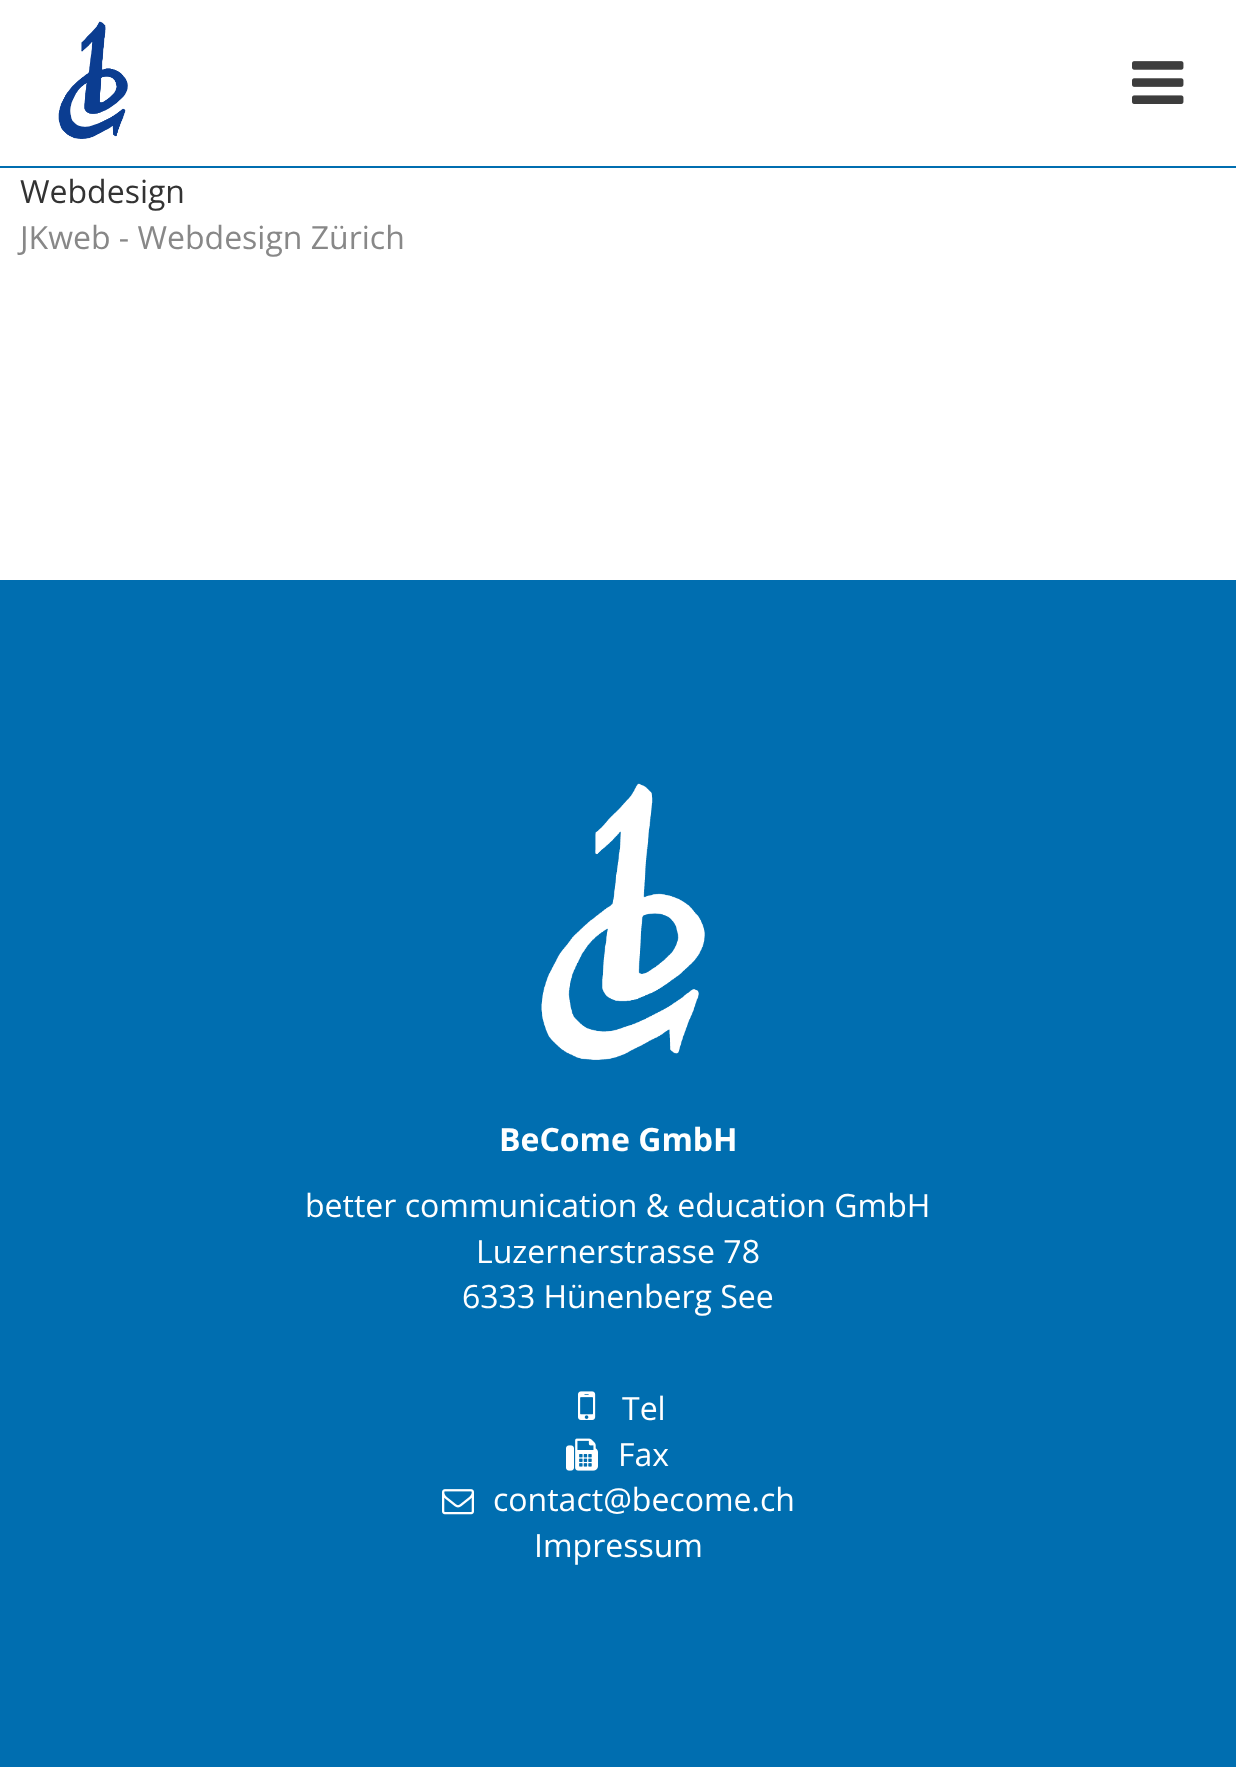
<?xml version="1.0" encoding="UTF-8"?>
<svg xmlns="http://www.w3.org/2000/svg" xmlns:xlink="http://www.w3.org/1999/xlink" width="1236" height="1767">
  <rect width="100%" height="100%" fill="#ffffff" />
  <image x="58" y="21" width="70" height="118" xlink:href="image1.png" />
  <image x="1132" y="61" width="52" height="43" xlink:href="image2.png" />
  <rect y="166" width="1236" height="2" fill="#006eb0" />
  <rect y="580" width="1236" height="1187" fill="#006eb0" />
  <image x="541" y="783" width="164" height="277" xlink:href="image3.png" />
  <image x="578" y="1391" width="18" height="29" xlink:href="image4.png" />
  <image x="566" y="1438" width="32" height="33" xlink:href="image5.png" />
  <image x="442" y="1489" width="32" height="26" xlink:href="image6.png" />
  <text x="20" y="203" style="font-family: Open Sans; font-size: 32px; fill: #333333">Webdesign</text>
  <text x="20" y="249" style="font-family: Open Sans; font-size: 32px; fill: #888888">JKweb - Webdesign Zürich</text>
  <text x="499" y="1151" style="font-family: Open Sans; font-size: 32px; font-weight: bold; fill: #ffffff">BeCome GmbH</text>
  <text x="305" y="1217" style="font-family: Open Sans; font-size: 32px; fill: #ffffff">better communication &amp; education GmbH</text>
  <text x="476" y="1263" style="font-family: Open Sans; font-size: 32px; fill: #ffffff">Luzernerstrasse 78</text>
  <text x="462" y="1308" style="font-family: Open Sans; font-size: 32px; fill: #ffffff">6333 Hünenberg See</text>
  <text x="622" y="1420" style="font-family: Open Sans; font-size: 32px; fill: #ffffff">Tel</text>
  <text x="618" y="1466" style="font-family: Open Sans; font-size: 32px; fill: #ffffff">Fax</text>
  <text x="493" y="1511" style="font-family: Open Sans; font-size: 32px; fill: #ffffff">contact@become.ch</text>
  <text x="534" y="1557" style="font-family: Open Sans; font-size: 32px; fill: #ffffff">Impressum</text>
</svg>
